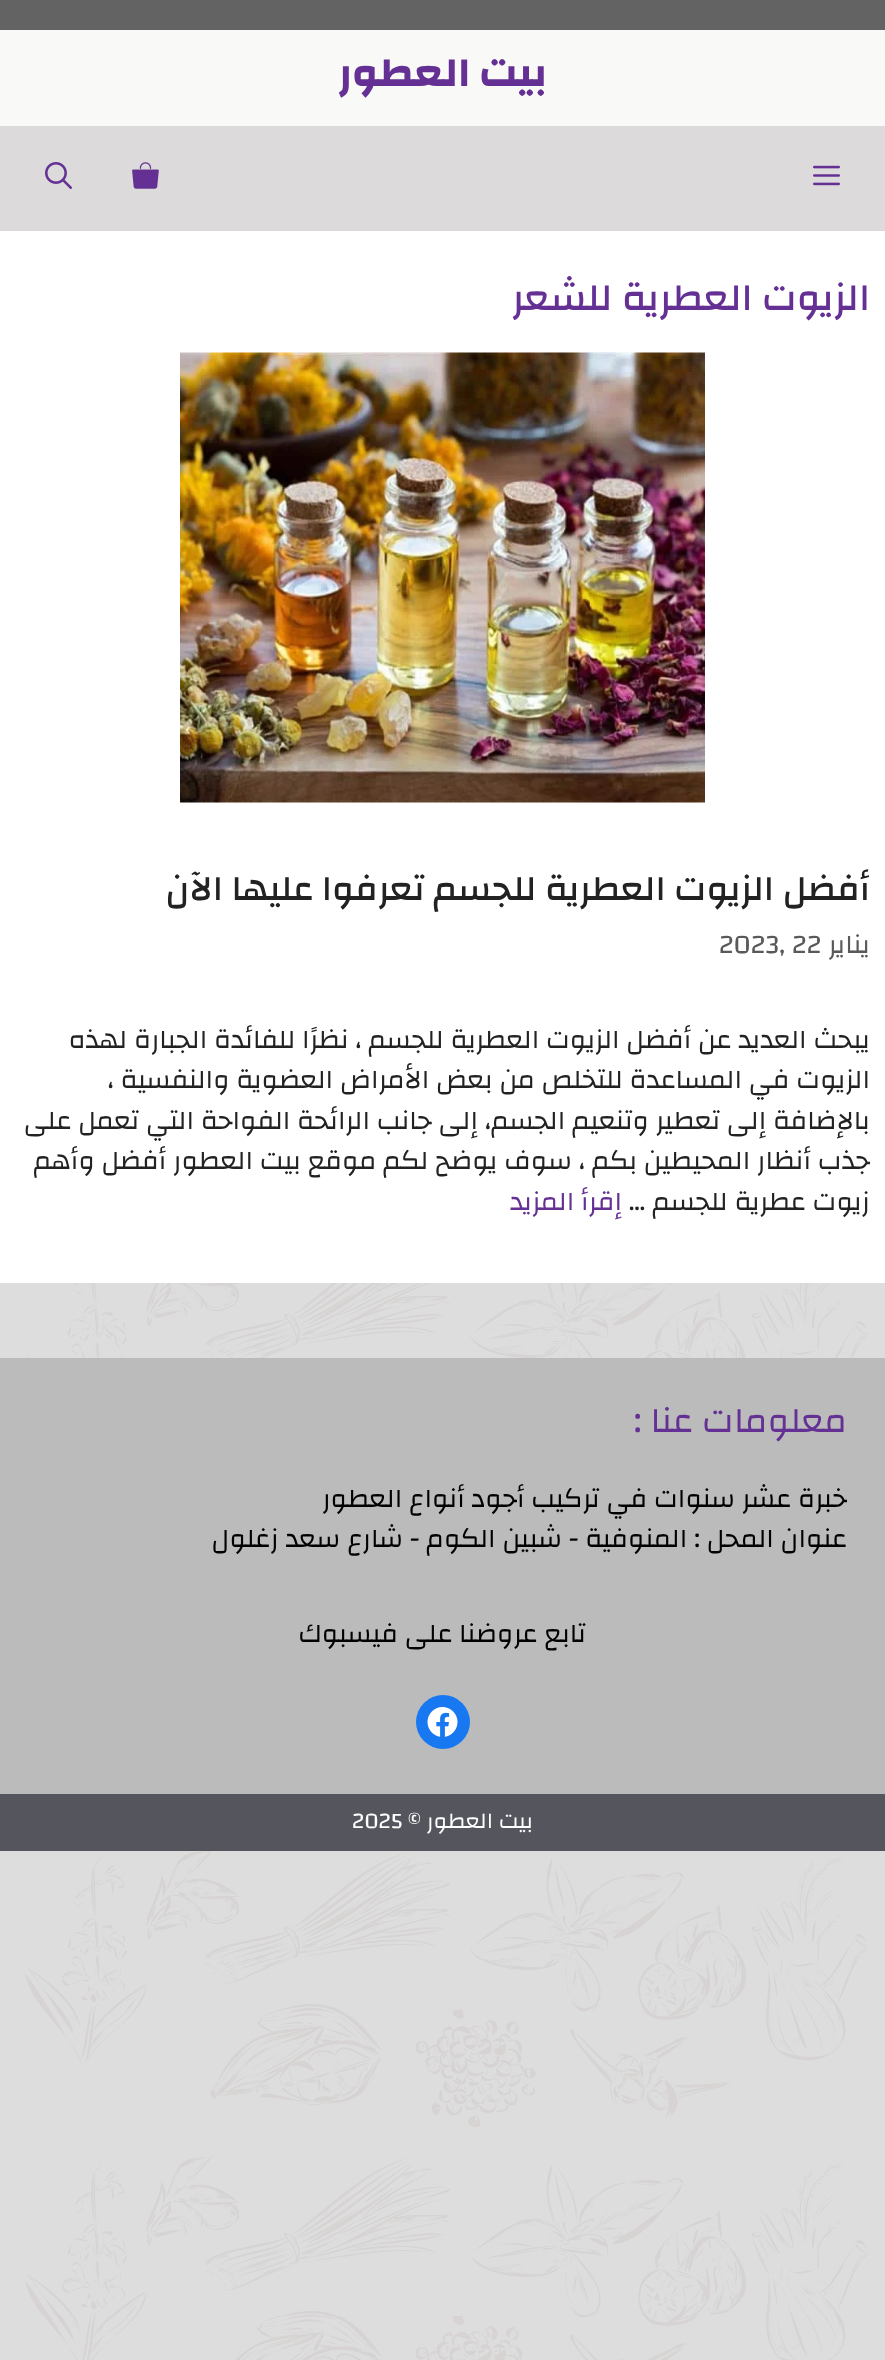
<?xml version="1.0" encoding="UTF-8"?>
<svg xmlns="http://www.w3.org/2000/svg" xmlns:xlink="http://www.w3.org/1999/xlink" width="885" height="2360">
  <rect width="100%" height="100%" fill="#dddddd" />
  <image x="25" y="1283" width="843" height="1077" xlink:href="image1.png" />
  <rect width="885" height="30" fill="#636363" />
  <rect y="30" width="885" height="96" fill="#f9f9f7" />
  <rect y="126" width="885" height="105" fill="#dcdada" />
  <image x="813" y="165" width="27" height="21" xlink:href="image2.png" />
  <image x="132" y="162" width="27" height="27" xlink:href="image3.png" />
  <image x="45" y="162" width="27" height="27" xlink:href="image4.png" />
  <rect y="231" width="885" height="1052" fill="#ffffff" />
  <image x="180" y="352" width="525" height="451" xlink:href="image5.png" />
  <rect y="1358" width="885" height="436" fill="#bbbbbb" />
  <circle cx="443" cy="1722" r="27" fill="#1778f2" />
  <image x="427" y="1707" width="31" height="30" xlink:href="image6.png" />
  <rect y="1794" width="885" height="57" fill="#55555e" />
  <text x="547" y="86" style="font-family: Changa; font-size: 42px; font-weight: bold; direction: rtl; fill: #643094">بيت العطور</text>
  <text x="870" y="310" style="font-family: Changa; font-size: 39px; font-weight: 500; direction: rtl; fill: #643094">الزيوت العطرية للشعر</text>
  <text x="870" y="900" style="font-family: Changa; font-size: 36px; font-weight: 500; direction: rtl; fill: #222222">أفضل الزيوت العطرية للجسم تعرفوا عليها الآن</text>
  <text x="870" y="953" style="font-family: Changa; font-size: 27px; direction: rtl; fill: #595959">يناير</text>
  <text x="719" y="953" style="font-family: Changa; font-size: 27px; fill: #595959">2023, 22</text>
  <text x="870" y="1048" style="font-family: Changa; font-size: 27px; direction: rtl; fill: #222222">يبحث العديد عن أفضل الزيوت العطرية للجسم ، نظرًا للفائدة الجبارة لهذه</text>
  <text x="870" y="1088" style="font-family: Changa; font-size: 27px; direction: rtl; fill: #222222">الزيوت في المساعدة للتخلص من بعض الأمراض العضوية والنفسية ،</text>
  <text x="870" y="1129" style="font-family: Changa; font-size: 27px; direction: rtl; fill: #222222">بالإضافة إلى تعطير وتنعيم الجسم، إلى جانب الرائحة الفواحة التي تعمل على</text>
  <text x="870" y="1169" style="font-family: Changa; font-size: 27px; direction: rtl; fill: #222222">جذب أنظار المحيطين بكم ، سوف يوضح لكم موقع بيت العطور أفضل وأهم</text>
  <text x="870" y="1210" style="font-family: Changa; font-size: 27px; direction: rtl; fill: #222222">زيوت عطرية للجسم …</text>
  <text x="622" y="1210" style="font-family: Changa; font-size: 27px; direction: rtl; fill: #643094">إقرأ المزيد</text>
  <text x="847" y="1432" style="font-family: Changa; font-size: 36px; direction: rtl; fill: #643094">معلومات عنا :</text>
  <text x="847" y="1507" style="font-family: Changa; font-size: 27px; direction: rtl; fill: #000000">خبرة عشر سنوات في تركيب أجود أنواع العطور</text>
  <text x="847" y="1547" style="font-family: Changa; font-size: 27px; direction: rtl; fill: #000000">عنوان المحل : المنوفية - شبين الكوم - شارع سعد زغلول</text>
  <text x="586" y="1642" style="font-family: Changa; font-size: 27px; direction: rtl; fill: #000000">تابع عروضنا على فيسبوك</text>
  <text x="533" y="1828" style="font-family: Changa; font-size: 22.5px; direction: rtl; fill: #ffffff">بيت العطور ©</text>
  <text x="352" y="1828" style="font-family: Changa; font-size: 22.5px; fill: #ffffff">2025</text>
</svg>
